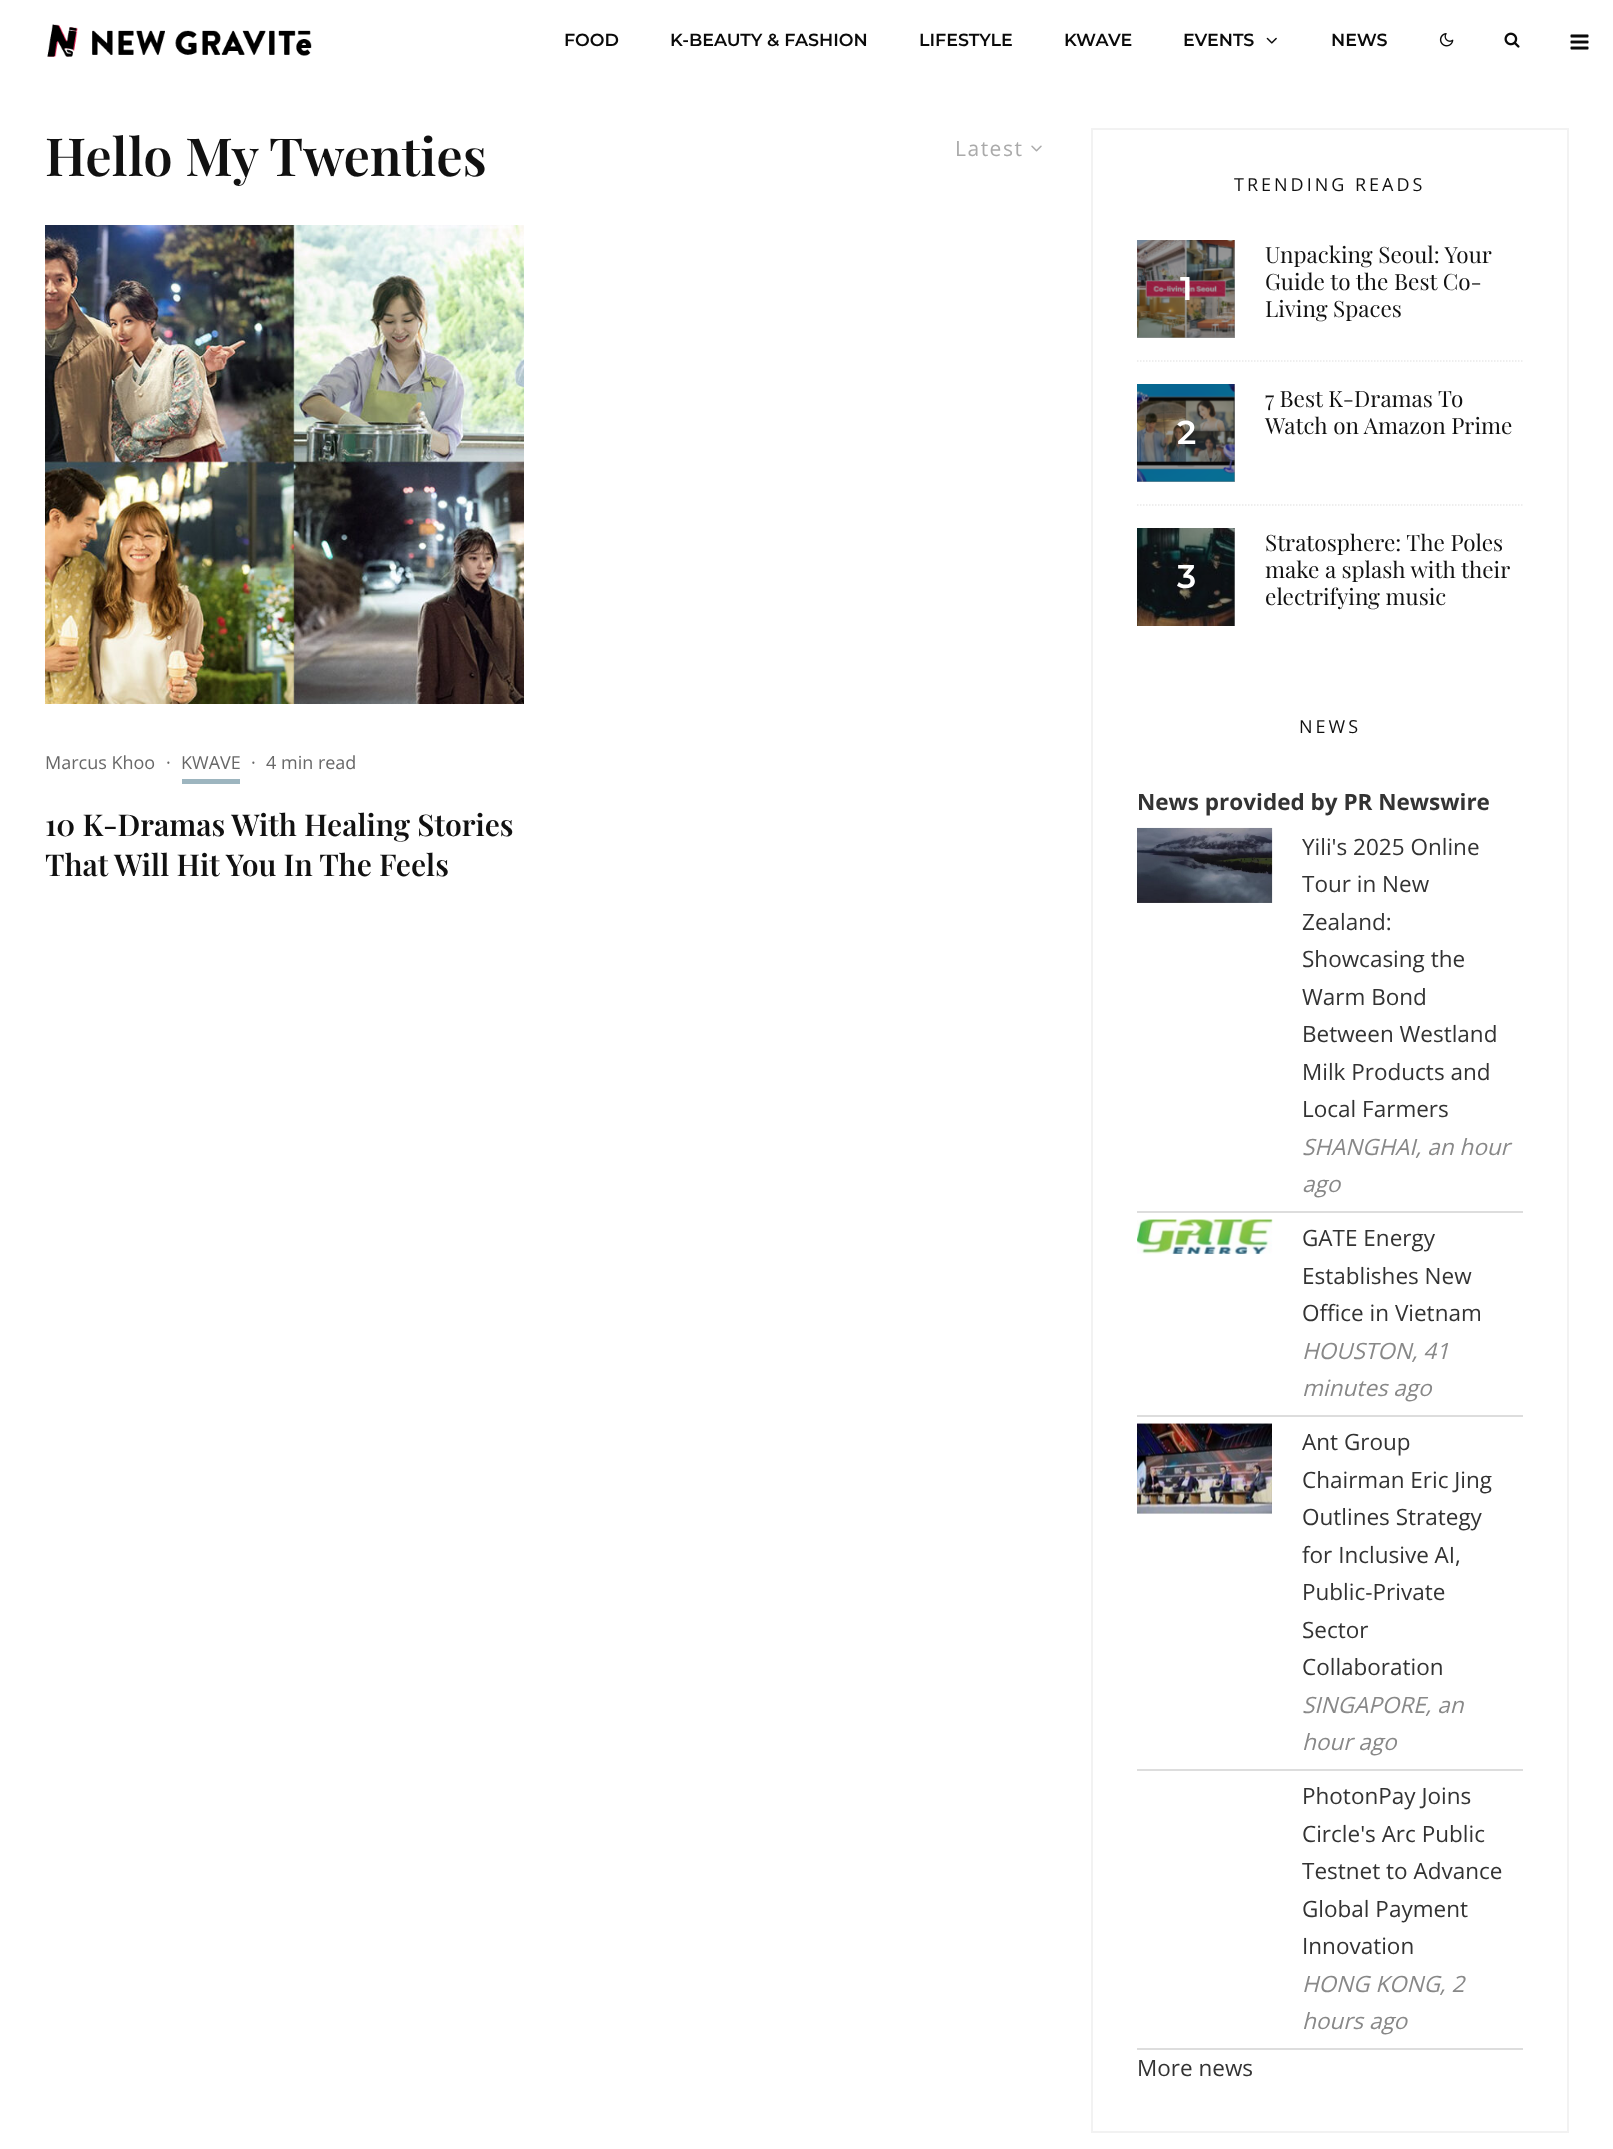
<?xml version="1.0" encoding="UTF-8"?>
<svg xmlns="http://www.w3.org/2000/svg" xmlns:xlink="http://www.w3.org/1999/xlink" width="1613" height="2149">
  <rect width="100%" height="100%" fill="#ffffff" />
  <image x="47" y="24" width="265" height="33" xlink:href="image1.png" />
  <image x="1266" y="37" width="11" height="7" xlink:href="image2.png" />
  <image x="1439" y="33" width="15" height="14" xlink:href="image3.png" />
  <image x="1504" y="32" width="16" height="16" xlink:href="image4.png" />
  <image x="1570" y="34" width="19" height="16" xlink:href="image5.png" />
  <image x="1031" y="145" width="11" height="7" xlink:href="image6.png" />
  <image x="45" y="225" width="479" height="479" xlink:href="image7.png" />
  <rect x="182" y="779" width="58" height="5" fill="#9db5bf" />
  <rect x="1092" y="129" width="476" height="2003" fill="none" stroke="#f2f2f2" stroke-width="2" />
  <path d="M 1137 361 h 385.5" fill="none" stroke="#e9e9e9" stroke-width="1.5" stroke-dasharray="1.5 1.5" />
  <rect x="1137" y="240" width="98" height="98" fill="#969697" />
  <image x="1137" y="240" width="98" height="98" xlink:href="image8.png" />
  <path d="M 1137 505 h 385.5" fill="none" stroke="#e9e9e9" stroke-width="1.5" stroke-dasharray="1.5 1.5" />
  <rect x="1137" y="384" width="98" height="98" fill="#969697" />
  <image x="1137" y="384" width="98" height="98" xlink:href="image9.png" />
  <rect x="1234" y="528" width="1" height="98" fill="#969697" />
  <image x="1137" y="528" width="98" height="98" xlink:href="image10.png" />
  <rect x="1137" y="1211" width="386" height="2" fill="#dddddd" />
  <image x="1137" y="827" width="136" height="76" xlink:href="image11.png" />
  <rect x="1137" y="1415" width="386" height="2" fill="#dddddd" />
  <image x="1137" y="1219" width="136" height="35" xlink:href="image12.png" />
  <rect x="1137" y="1769" width="386" height="2" fill="#dddddd" />
  <image x="1137" y="1423" width="135" height="91" xlink:href="image13.png" />
  <rect x="1137" y="2048" width="386" height="2" fill="#dddddd" />
  <text x="564" y="46" style="font-family: Montserrat; font-size: 17.5px; font-weight: 600; fill: #0a0a0a">FOOD</text>
  <text x="670" y="46" style="font-family: Montserrat; font-size: 17.5px; font-weight: 600; fill: #0a0a0a">K-BEAUTY &amp; FASHION</text>
  <text x="919" y="46" style="font-family: Montserrat; font-size: 17.5px; font-weight: 600; fill: #0a0a0a">LIFESTYLE</text>
  <text x="1064" y="46" style="font-family: Montserrat; font-size: 17.5px; font-weight: 600; fill: #0a0a0a">KWAVE</text>
  <text x="1183" y="46" style="font-family: Montserrat; font-size: 17.5px; font-weight: 600; fill: #0a0a0a">EVENTS</text>
  <text x="1331" y="46" style="font-family: Montserrat; font-size: 17.5px; font-weight: 600; fill: #0a0a0a">NEWS</text>
  <text x="45" y="176" style="font-family: Playfair Display; font-size: 52.5px; font-weight: 600; fill: #111111">Hello My Twenties</text>
  <text x="955" y="156" style="font-family: Open Sans; font-size: 21px; letter-spacing: 1.5px; fill: #aaaaaa">Latest</text>
  <text x="45" y="769" style="font-family: Open Sans; font-size: 18px; fill: #686868">Marcus Khoo</text>
  <text x="166" y="769" style="font-family: Open Sans; font-size: 18px; fill: #686868">·</text>
  <text x="181" y="769" style="font-family: Open Sans; font-size: 18px; fill: #686868">KWAVE</text>
  <text x="251" y="769" style="font-family: Open Sans; font-size: 18px; fill: #686868">·</text>
  <text x="266" y="769" style="font-family: Open Sans; font-size: 18px; fill: #686868">4 min read</text>
  <text x="45" y="836" style="font-family: Playfair Display; font-size: 30px; font-weight: 600; fill: #111111">10 K-Dramas With Healing Stories</text>
  <text x="45" y="876" style="font-family: Playfair Display; font-size: 30px; font-weight: 600; fill: #111111">That Will Hit You In The Feels</text>
  <text x="1234" y="191" style="font-family: Open Sans; font-size: 18px; letter-spacing: 3px; fill: #111111">TRENDING READS</text>
  <text x="1180" y="300" style="font-family: Montserrat; font-size: 33px; font-weight: 600; fill: #ffffff">1</text>
  <text x="1265" y="263" style="font-family: Playfair Display; font-size: 22.5px; fill: #111111">Unpacking Seoul: Your</text>
  <text x="1265" y="290" style="font-family: Playfair Display; font-size: 22.5px; fill: #111111">Guide to the Best Co-</text>
  <text x="1265" y="317" style="font-family: Playfair Display; font-size: 22.5px; fill: #111111">Living Spaces</text>
  <text x="1177" y="444" style="font-family: Montserrat; font-size: 33px; font-weight: 600; fill: #ffffff">2</text>
  <text x="1265" y="407" style="font-family: Playfair Display; font-size: 22.5px; fill: #111111">7 Best K-Dramas To</text>
  <text x="1265" y="434" style="font-family: Playfair Display; font-size: 22.5px; fill: #111111">Watch on Amazon Prime</text>
  <text x="1177" y="588" style="font-family: Montserrat; font-size: 33px; font-weight: 600; fill: #ffffff">3</text>
  <text x="1265" y="551" style="font-family: Playfair Display; font-size: 22.5px; fill: #111111">Stratosphere: The Poles</text>
  <text x="1265" y="578" style="font-family: Playfair Display; font-size: 22.5px; fill: #111111">make a splash with their</text>
  <text x="1265" y="605" style="font-family: Playfair Display; font-size: 22.5px; fill: #111111">electrifying music</text>
  <text x="1299" y="733" style="font-family: Open Sans; font-size: 18px; letter-spacing: 3px; fill: #111111">NEWS</text>
  <text x="1137" y="810" style="font-family: Open Sans; font-size: 22.5px; font-weight: bold; fill: #333333">News provided by PR Newswire</text>
  <text x="1302" y="855" style="font-family: Open Sans; font-size: 22.5px; fill: #333333">Yili's 2025 Online</text>
  <text x="1302" y="892" style="font-family: Open Sans; font-size: 22.5px; fill: #333333">Tour in New</text>
  <text x="1302" y="930" style="font-family: Open Sans; font-size: 22.5px; fill: #333333">Zealand:</text>
  <text x="1302" y="967" style="font-family: Open Sans; font-size: 22.5px; fill: #333333">Showcasing the</text>
  <text x="1302" y="1005" style="font-family: Open Sans; font-size: 22.5px; fill: #333333">Warm Bond</text>
  <text x="1302" y="1042" style="font-family: Open Sans; font-size: 22.5px; fill: #333333">Between Westland</text>
  <text x="1302" y="1080" style="font-family: Open Sans; font-size: 22.5px; fill: #333333">Milk Products and</text>
  <text x="1302" y="1117" style="font-family: Open Sans; font-size: 22.5px; fill: #333333">Local Farmers</text>
  <text x="1302" y="1155" style="font-family: Open Sans; font-size: 22.5px; font-style: italic; fill: #888888">SHANGHAI, an hour</text>
  <text x="1302" y="1192" style="font-family: Open Sans; font-size: 22.5px; font-style: italic; fill: #888888">ago</text>
  <text x="1302" y="1246" style="font-family: Open Sans; font-size: 22.5px; fill: #333333">GATE Energy</text>
  <text x="1302" y="1284" style="font-family: Open Sans; font-size: 22.5px; fill: #333333">Establishes New</text>
  <text x="1302" y="1321" style="font-family: Open Sans; font-size: 22.5px; fill: #333333">Office in Vietnam</text>
  <text x="1302" y="1359" style="font-family: Open Sans; font-size: 22.5px; font-style: italic; fill: #888888">HOUSTON, 41</text>
  <text x="1302" y="1396" style="font-family: Open Sans; font-size: 22.5px; font-style: italic; fill: #888888">minutes ago</text>
  <text x="1302" y="1450" style="font-family: Open Sans; font-size: 22.5px; fill: #333333">Ant Group</text>
  <text x="1302" y="1488" style="font-family: Open Sans; font-size: 22.5px; fill: #333333">Chairman Eric Jing</text>
  <text x="1302" y="1525" style="font-family: Open Sans; font-size: 22.5px; fill: #333333">Outlines Strategy</text>
  <text x="1302" y="1563" style="font-family: Open Sans; font-size: 22.5px; fill: #333333">for Inclusive AI,</text>
  <text x="1302" y="1600" style="font-family: Open Sans; font-size: 22.5px; fill: #333333">Public-Private</text>
  <text x="1302" y="1638" style="font-family: Open Sans; font-size: 22.5px; fill: #333333">Sector</text>
  <text x="1302" y="1675" style="font-family: Open Sans; font-size: 22.5px; fill: #333333">Collaboration</text>
  <text x="1302" y="1713" style="font-family: Open Sans; font-size: 22.5px; font-style: italic; fill: #888888">SINGAPORE, an</text>
  <text x="1302" y="1750" style="font-family: Open Sans; font-size: 22.5px; font-style: italic; fill: #888888">hour ago</text>
  <text x="1302" y="1804" style="font-family: Open Sans; font-size: 22.5px; fill: #333333">PhotonPay Joins</text>
  <text x="1302" y="1842" style="font-family: Open Sans; font-size: 22.5px; fill: #333333">Circle's Arc Public</text>
  <text x="1302" y="1879" style="font-family: Open Sans; font-size: 22.5px; fill: #333333">Testnet to Advance</text>
  <text x="1302" y="1917" style="font-family: Open Sans; font-size: 22.5px; fill: #333333">Global Payment</text>
  <text x="1302" y="1954" style="font-family: Open Sans; font-size: 22.5px; fill: #333333">Innovation</text>
  <text x="1302" y="1992" style="font-family: Open Sans; font-size: 22.5px; font-style: italic; fill: #888888">HONG KONG, 2</text>
  <text x="1302" y="2029" style="font-family: Open Sans; font-size: 22.5px; font-style: italic; fill: #888888">hours ago</text>
  <text x="1137" y="2076" style="font-family: Open Sans; font-size: 22.5px; fill: #333333">More news</text>
</svg>
